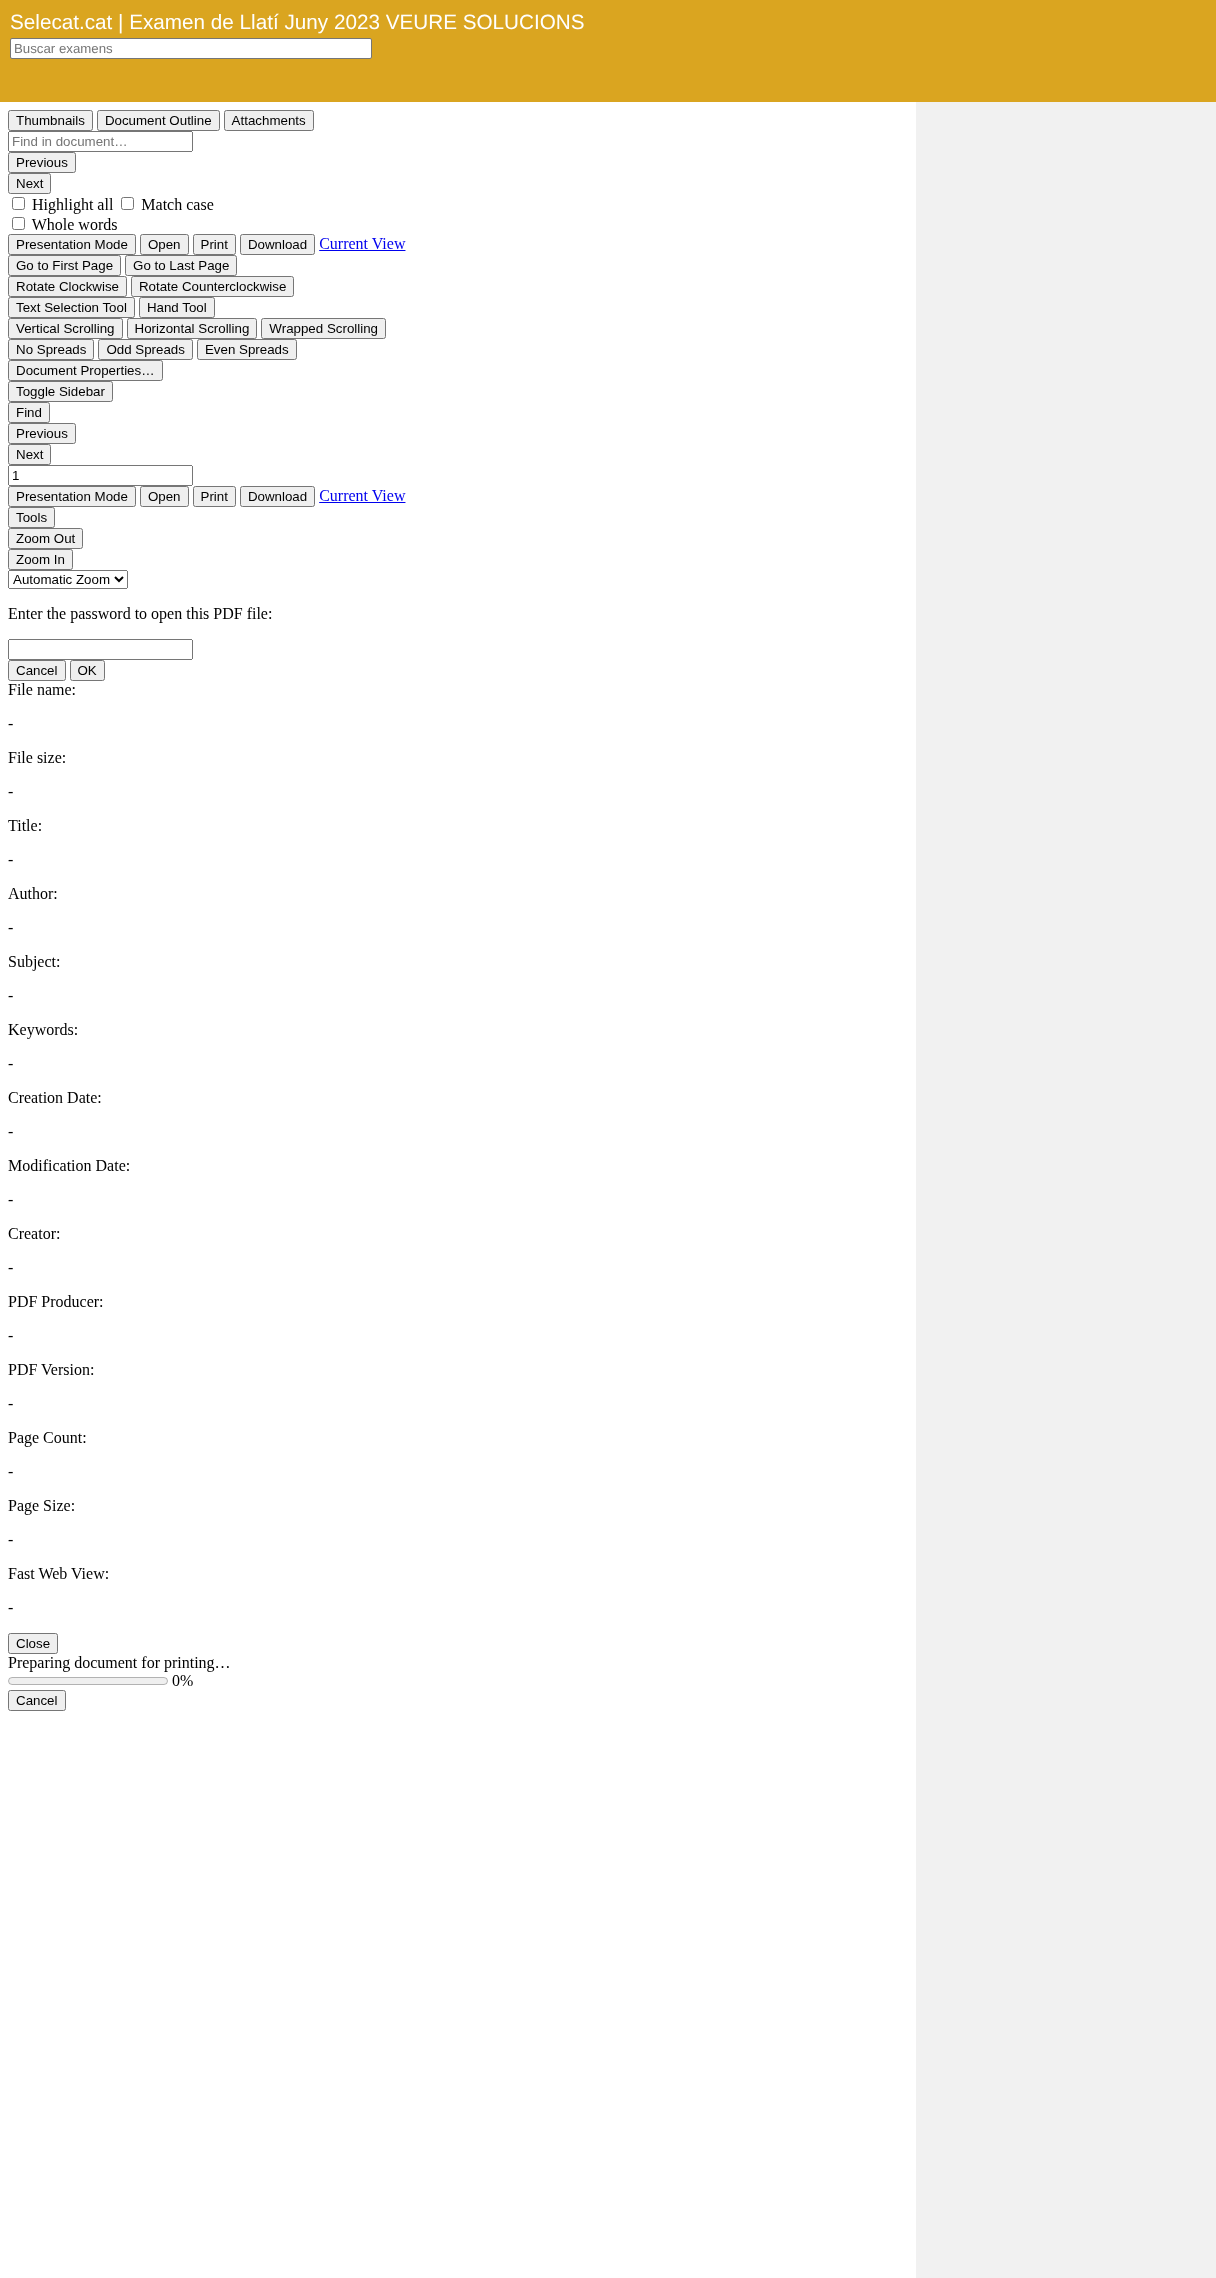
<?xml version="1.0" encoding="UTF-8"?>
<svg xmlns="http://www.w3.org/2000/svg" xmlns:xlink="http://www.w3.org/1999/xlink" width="1216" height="2278">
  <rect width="100%" height="100%" fill="#ffffff" />
  <rect width="1216" height="102" fill="#daa520" />
  <rect x="10.5" y="38.5" width="361" height="20" rx="1.5" fill="#ffffff" stroke="#767676" />
  <image x="8" y="110" width="398" height="1601" xlink:href="image1.png" />
  <rect x="916" y="102" width="300" height="2176" fill="#f1f1f1" />
  <text x="10" y="29" style="font-family: Liberation Sans; font-size: 20.7px; fill: #ffffff">Selecat.cat | Examen de Llatí Juny 2023 VEURE SOLUCIONS</text>
  <text x="14" y="53" style="font-family: Liberation Sans; font-size: 13.25px; fill: #757575">Buscar examens</text>
</svg>
